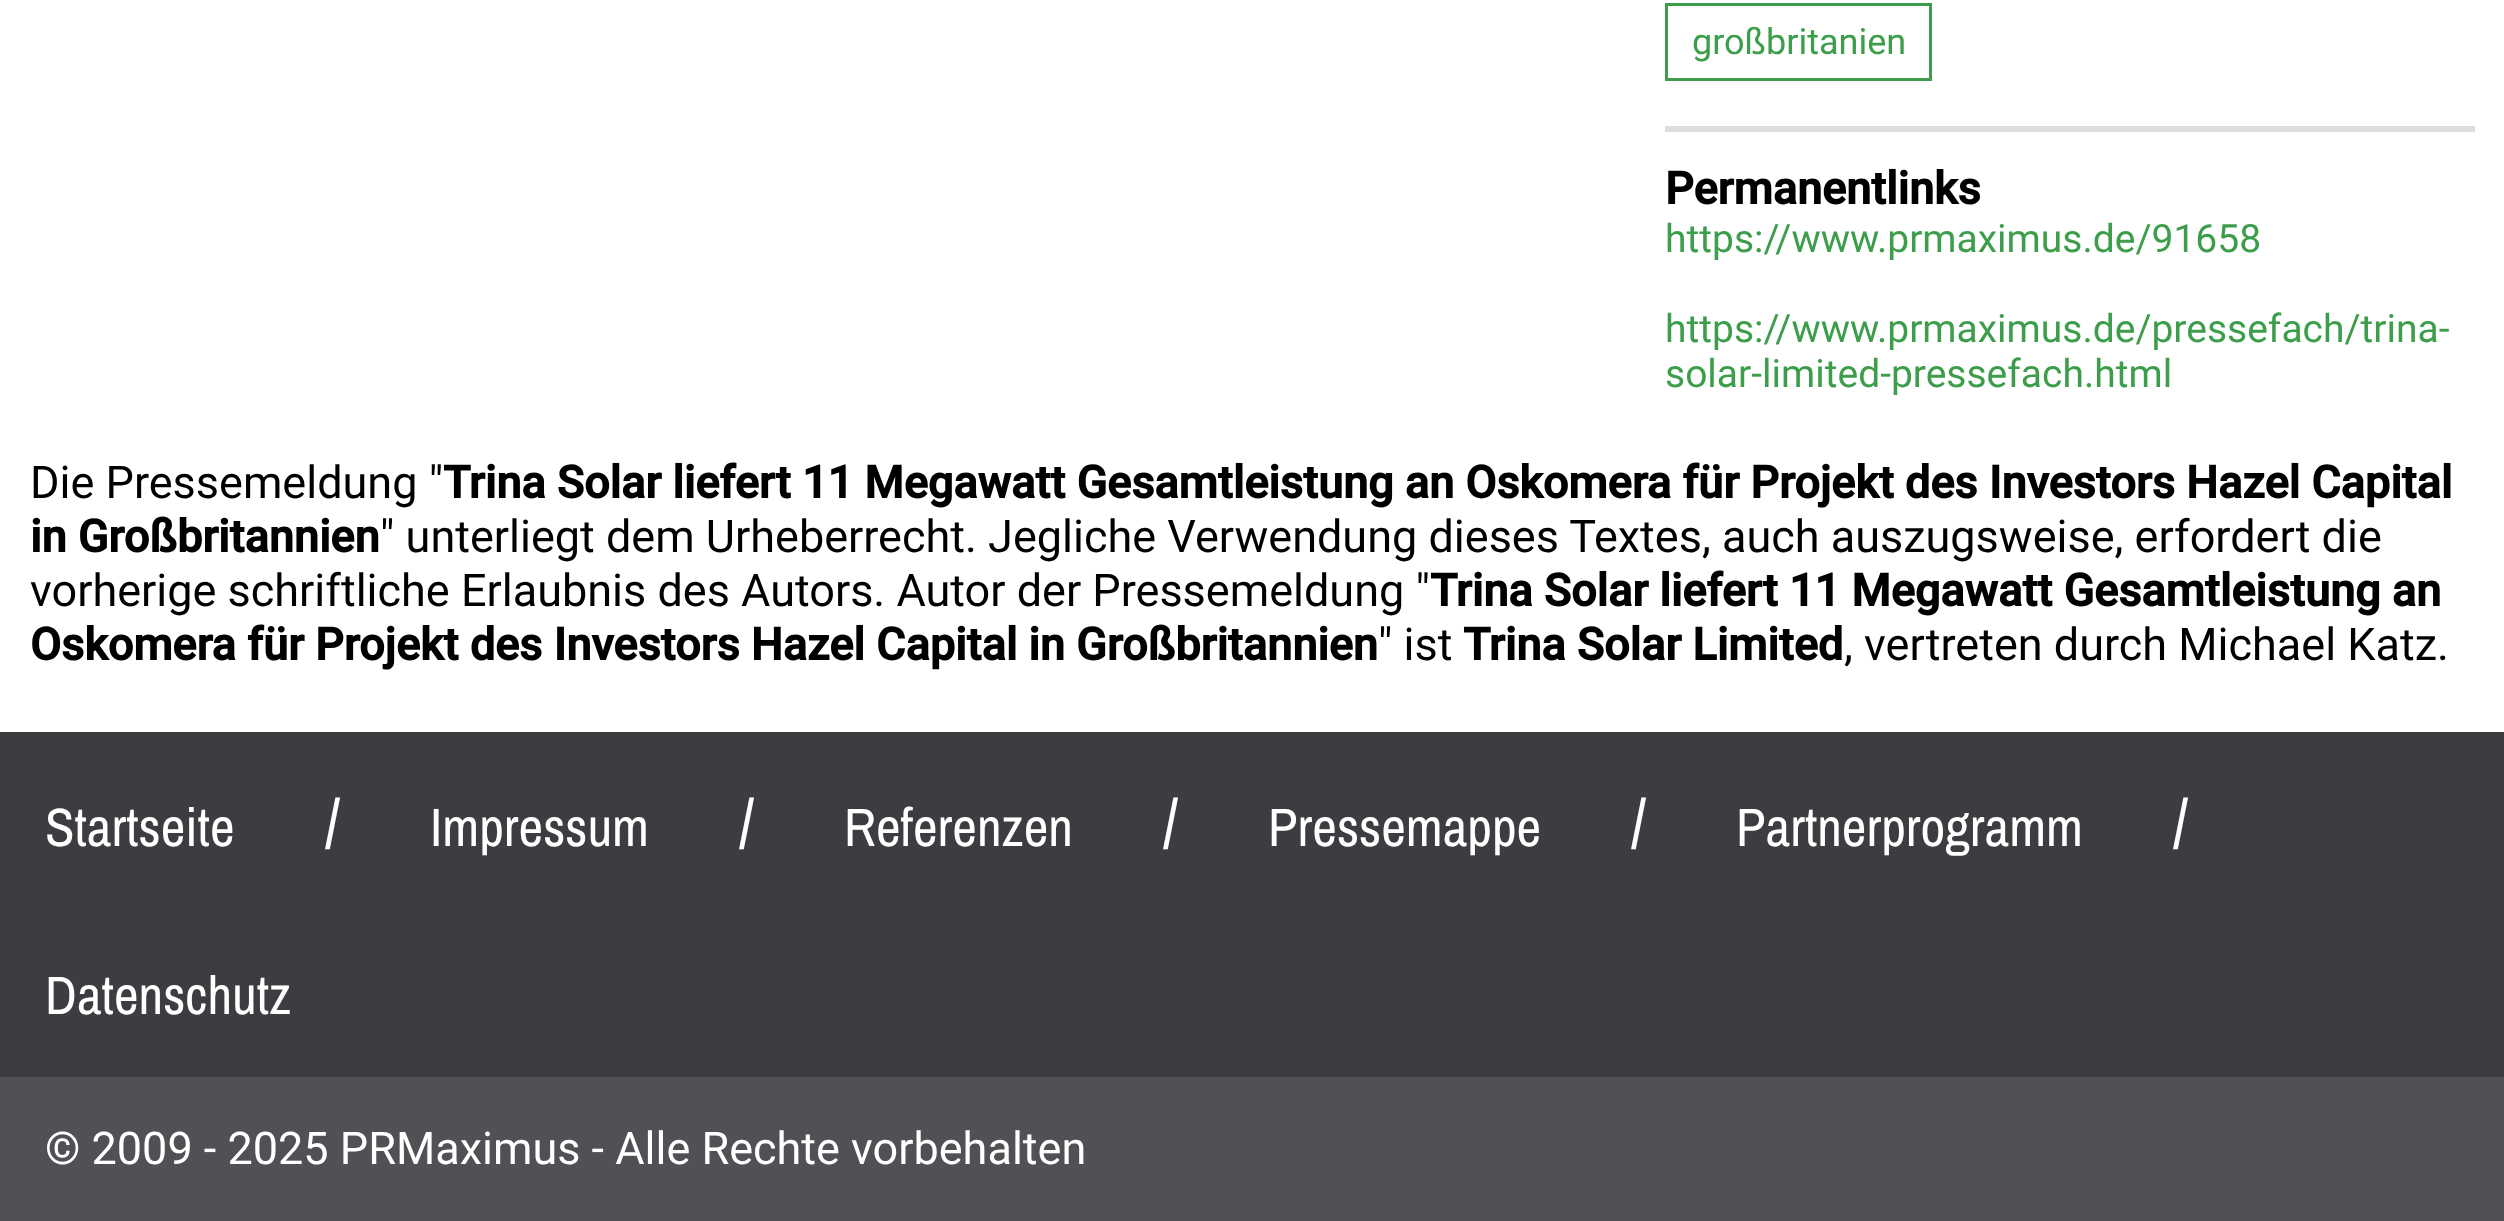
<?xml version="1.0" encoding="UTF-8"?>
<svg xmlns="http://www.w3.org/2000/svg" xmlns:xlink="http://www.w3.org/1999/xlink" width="2504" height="1221">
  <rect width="100%" height="100%" fill="#ffffff" />
  <rect x="1666.5" y="4.5" width="264" height="75" fill="none" stroke="#3c9d4a" stroke-width="3" />
  <rect x="1665" y="126" width="810" height="6" fill="#dddddd" />
  <rect y="732" width="2504" height="345" fill="#3c3d41" />
  <rect y="1077" width="2504" height="144" fill="#505155" />
  <text x="1692" y="54" style="font-family: Roboto; font-size: 36px; fill: #3c9d4a">großbritanien</text>
  <text x="1665" y="204" style="font-family: Roboto; font-size: 45px; font-weight: bold; fill: #000000">Permanentlinks</text>
  <text x="1665" y="252" style="font-family: Roboto; font-size: 39px; fill: #3c9d4a">https://www.prmaximus.de/91658</text>
  <text x="1665" y="342" style="font-family: Roboto; font-size: 39px; fill: #3c9d4a">https://www.prmaximus.de/pressefach/trina-</text>
  <text x="1665" y="387" style="font-family: Roboto; font-size: 39px; fill: #3c9d4a">solar-limited-pressefach.html</text>
  <text x="30" y="498" style="font-family: Roboto; font-size: 45px; fill: #000000">Die Pressemeldung "</text>
  <text x="443" y="498" style="font-family: Roboto; font-size: 45px; font-weight: bold; fill: #000000">Trina Solar liefert 11 Megawatt Gesamtleistung an Oskomera für Projekt des Investors Hazel Capital</text>
  <text x="30" y="552" style="font-family: Roboto; font-size: 45px; font-weight: bold; fill: #000000">in Großbritannien</text>
  <text x="380" y="552" style="font-family: Roboto; font-size: 45px; fill: #000000">" unterliegt dem Urheberrecht. Jegliche Verwendung dieses Textes, auch auszugsweise, erfordert die</text>
  <text x="30" y="606" style="font-family: Roboto; font-size: 45px; fill: #000000">vorherige schriftliche Erlaubnis des Autors. Autor der Pressemeldung "</text>
  <text x="1430" y="606" style="font-family: Roboto; font-size: 45px; font-weight: bold; fill: #000000">Trina Solar liefert 11 Megawatt Gesamtleistung an</text>
  <text x="30" y="660" style="font-family: Roboto; font-size: 45px; font-weight: bold; fill: #000000">Oskomera für Projekt des Investors Hazel Capital in Großbritannien</text>
  <text x="1378" y="660" style="font-family: Roboto; font-size: 45px; fill: #000000">" ist</text>
  <text x="1463" y="660" style="font-family: Roboto; font-size: 45px; font-weight: bold; fill: #000000">Trina Solar Limited</text>
  <text x="1844" y="660" style="font-family: Roboto; font-size: 45px; fill: #000000">, vertreten durch Michael Katz.</text>
  <text x="45" y="846" style="font-family: Archivo Narrow; font-size: 54px; fill: #ffffff">Startseite</text>
  <text x="325" y="846" style="font-family: Archivo Narrow; font-size: 66px; fill: #ffffff">/</text>
  <text x="430" y="846" style="font-family: Archivo Narrow; font-size: 54px; fill: #ffffff">Impressum</text>
  <text x="739" y="846" style="font-family: Archivo Narrow; font-size: 66px; fill: #ffffff">/</text>
  <text x="844" y="846" style="font-family: Archivo Narrow; font-size: 54px; fill: #ffffff">Referenzen</text>
  <text x="1163" y="846" style="font-family: Archivo Narrow; font-size: 66px; fill: #ffffff">/</text>
  <text x="1268" y="846" style="font-family: Archivo Narrow; font-size: 54px; fill: #ffffff">Pressemappe</text>
  <text x="1631" y="846" style="font-family: Archivo Narrow; font-size: 66px; fill: #ffffff">/</text>
  <text x="1736" y="846" style="font-family: Archivo Narrow; font-size: 54px; fill: #ffffff">Partnerprogramm</text>
  <text x="2173" y="846" style="font-family: Archivo Narrow; font-size: 66px; fill: #ffffff">/</text>
  <text x="45" y="1014" style="font-family: Archivo Narrow; font-size: 54px; fill: #ffffff">Datenschutz</text>
  <text x="45" y="1164" style="font-family: Roboto; font-size: 45px; fill: #ffffff">© 2009 - 2025 PRMaximus - Alle Rechte vorbehalten</text>
</svg>
